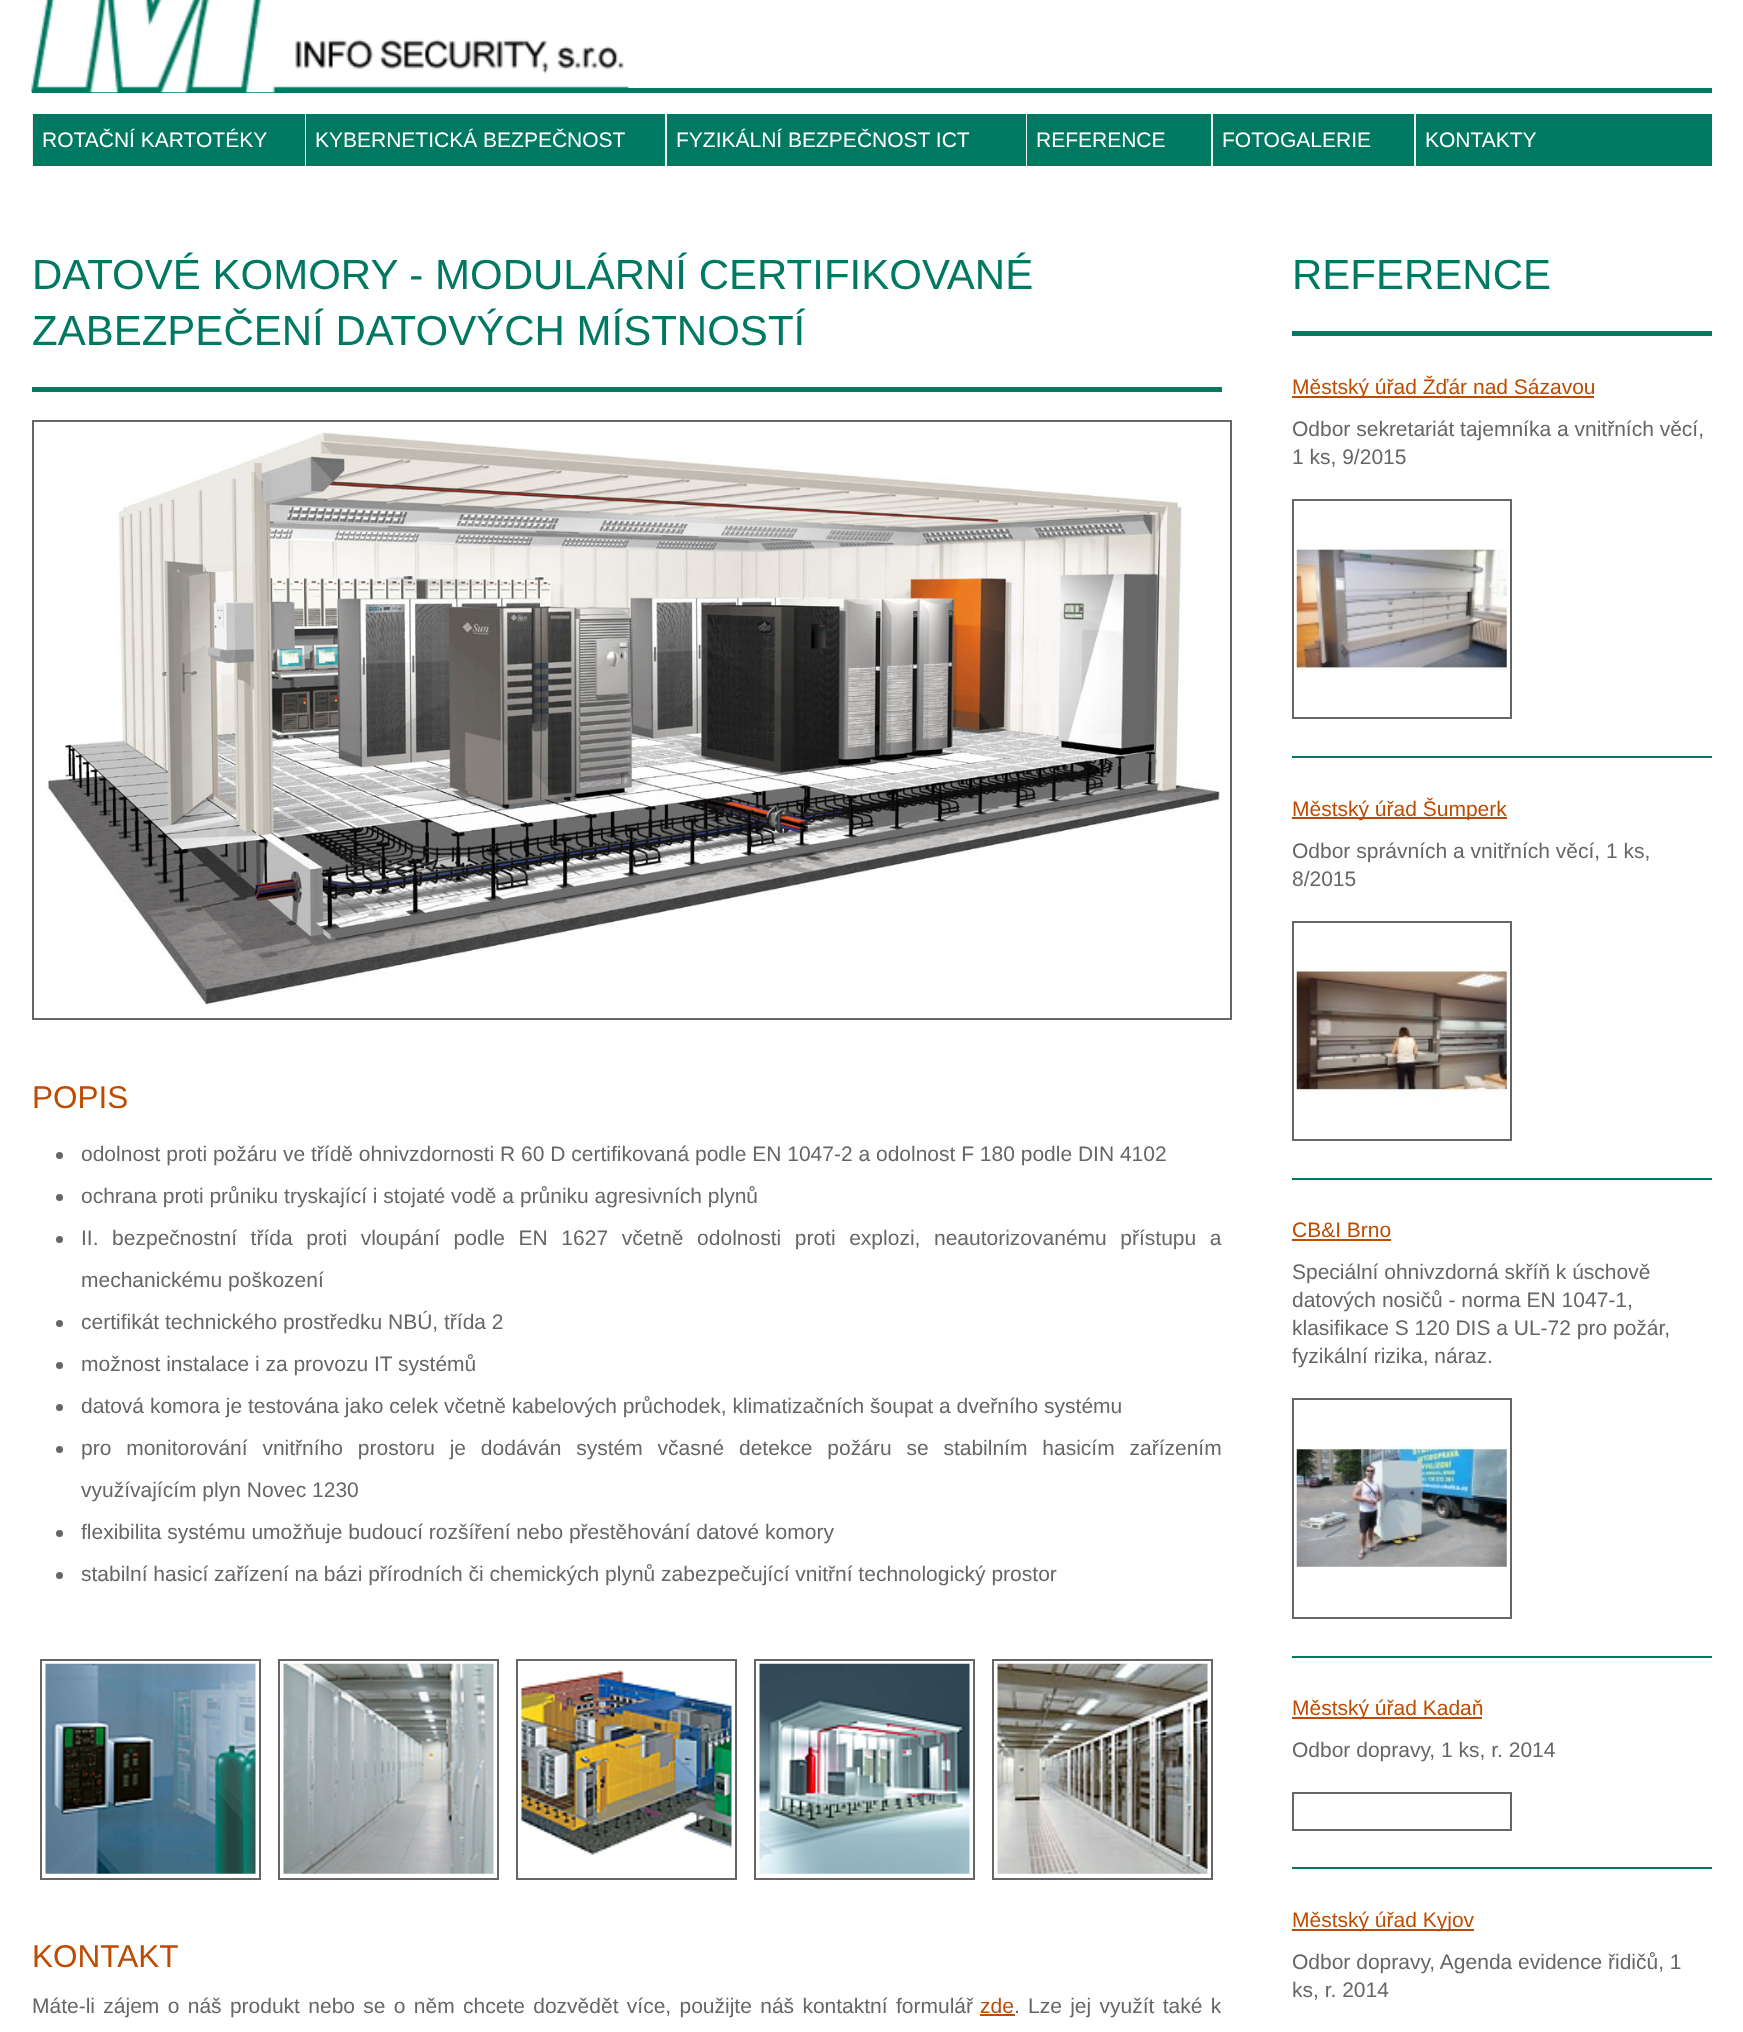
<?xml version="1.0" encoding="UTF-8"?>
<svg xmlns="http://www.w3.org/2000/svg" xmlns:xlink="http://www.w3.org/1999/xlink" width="1743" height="2032">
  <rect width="100%" height="100%" fill="#ffffff" />
  <rect x="32" y="88" width="1680" height="5" fill="#007962" />
  <image x="31" y="0" width="598" height="93" xlink:href="image1.png" />
  <rect x="667" y="114" width="1045" height="52" fill="#007962" />
  <rect x="32" y="114" width="1" height="52" fill="#eeeeee" />
  <rect x="33" y="114" width="272" height="52" fill="#007962" />
  <rect x="305" y="114" width="1" height="52" fill="#eeeeee" />
  <rect x="306" y="114" width="359" height="52" fill="#007962" />
  <rect x="665" y="114" width="2" height="52" fill="#eeeeee" />
  <rect x="1026" y="114" width="1" height="52" fill="#eeeeee" />
  <rect x="1211" y="114" width="2" height="52" fill="#eeeeee" />
  <rect x="1414" y="114" width="2" height="52" fill="#eeeeee" />
  <rect x="32" y="387" width="1190" height="5" fill="#007962" />
  <rect x="33" y="421" width="1198" height="598" fill="none" stroke="#666666" stroke-width="2" />
  <image x="46" y="432" width="1176" height="573" xlink:href="image2.png" />
  <circle cx="59.5" cy="1155.5" r="3.5" fill="#666666" />
  <circle cx="59.5" cy="1197.5" r="3.5" fill="#666666" />
  <circle cx="59.5" cy="1239.5" r="3.5" fill="#666666" />
  <circle cx="59.5" cy="1323.5" r="3.5" fill="#666666" />
  <circle cx="59.5" cy="1365.5" r="3.5" fill="#666666" />
  <circle cx="59.5" cy="1407.5" r="3.5" fill="#666666" />
  <circle cx="59.5" cy="1449.5" r="3.5" fill="#666666" />
  <circle cx="59.5" cy="1533.5" r="3.5" fill="#666666" />
  <circle cx="59.5" cy="1575.5" r="3.5" fill="#666666" />
  <rect x="41" y="1660" width="219" height="219" fill="none" stroke="#666666" stroke-width="2" />
  <image x="45" y="1663" width="211" height="211" xlink:href="image3.png" />
  <rect x="279" y="1660" width="219" height="219" fill="none" stroke="#666666" stroke-width="2" />
  <image x="283" y="1663" width="211" height="211" xlink:href="image4.png" />
  <rect x="517" y="1660" width="219" height="219" fill="none" stroke="#666666" stroke-width="2" />
  <image x="521" y="1670" width="211" height="185" xlink:href="image5.png" />
  <rect x="755" y="1660" width="219" height="219" fill="none" stroke="#666666" stroke-width="2" />
  <image x="759" y="1663" width="211" height="211" xlink:href="image6.png" />
  <rect x="993" y="1660" width="219" height="219" fill="none" stroke="#666666" stroke-width="2" />
  <image x="997" y="1663" width="211" height="211" xlink:href="image7.png" />
  <rect x="980" y="2014" width="35" height="2" fill="#bd4b00" />
  <rect x="1292" y="331" width="420" height="5" fill="#007962" />
  <rect x="1292" y="756" width="420" height="2" fill="#007962" />
  <rect x="1292" y="396" width="302" height="2" fill="#bd4b00" />
  <rect x="1293" y="500" width="218" height="218" fill="none" stroke="#666666" stroke-width="2" />
  <image x="1296" y="548" width="211" height="124" xlink:href="image8.png" />
  <rect x="1292" y="1178" width="420" height="2" fill="#007962" />
  <rect x="1292" y="817" width="215" height="2" fill="#bd4b00" />
  <rect x="1293" y="922" width="218" height="218" fill="none" stroke="#666666" stroke-width="2" />
  <image x="1296" y="969" width="211" height="135" xlink:href="image9.png" />
  <rect x="1292" y="1656" width="420" height="2" fill="#007962" />
  <rect x="1292" y="1239" width="99" height="2" fill="#bd4b00" />
  <rect x="1293" y="1399" width="218" height="219" fill="none" stroke="#666666" stroke-width="2" />
  <image x="1296" y="1446" width="211" height="121" xlink:href="image10.png" />
  <rect x="1292" y="1867" width="420" height="2" fill="#007962" />
  <rect x="1292" y="1717" width="190" height="2" fill="#bd4b00" />
  <rect x="1293" y="1793" width="218" height="37" fill="none" stroke="#666666" stroke-width="2" />
  <rect x="1292" y="1929" width="182" height="2" fill="#bd4b00" />
  <text x="42" y="147" style="font-family: Liberation Sans; font-size: 21px; fill: #ffffff">ROTAČNÍ KARTOTÉKY</text>
  <text x="315" y="147" style="font-family: Liberation Sans; font-size: 21px; fill: #ffffff">KYBERNETICKÁ BEZPEČNOST</text>
  <text x="676" y="147" style="font-family: Liberation Sans; font-size: 21px; fill: #ffffff">FYZIKÁLNÍ BEZPEČNOST ICT</text>
  <text x="1036" y="147" style="font-family: Liberation Sans; font-size: 21px; fill: #ffffff">REFERENCE</text>
  <text x="1222" y="147" style="font-family: Liberation Sans; font-size: 21px; fill: #ffffff">FOTOGALERIE</text>
  <text x="1425" y="147" style="font-family: Liberation Sans; font-size: 21px; fill: #ffffff">KONTAKTY</text>
  <text x="32" y="289" style="font-family: Liberation Sans; font-size: 42px; fill: #007962">DATOVÉ KOMORY - MODULÁRNÍ CERTIFIKOVANÉ</text>
  <text x="32" y="345" style="font-family: Liberation Sans; font-size: 42px; fill: #007962">ZABEZPEČENÍ DATOVÝCH MÍSTNOSTÍ</text>
  <text x="32" y="1108" style="font-family: Liberation Sans; font-size: 31.5px; fill: #bd4b00">POPIS</text>
  <text x="81" y="1161" style="font-family: Liberation Sans; font-size: 21px; fill: #666666">odolnost proti požáru ve třídě ohnivzdornosti R 60 D certifikovaná podle EN 1047-2 a odolnost F 180 podle DIN 4102</text>
  <text x="81" y="1203" style="font-family: Liberation Sans; font-size: 21px; fill: #666666">ochrana proti průniku tryskající i stojaté vodě a průniku agresivních plynů</text>
  <text x="81" y="1245" word-spacing="7.75" style="font-family: Liberation Sans; font-size: 21px; fill: #666666">II. bezpečnostní třída proti vloupání podle EN 1627 včetně odolnosti proti explozi, neautorizovanému přístupu a</text>
  <text x="81" y="1287" style="font-family: Liberation Sans; font-size: 21px; fill: #666666">mechanickému poškození</text>
  <text x="81" y="1329" style="font-family: Liberation Sans; font-size: 21px; fill: #666666">certifikát technického prostředku NBÚ, třída 2</text>
  <text x="81" y="1371" style="font-family: Liberation Sans; font-size: 21px; fill: #666666">možnost instalace i za provozu IT systémů</text>
  <text x="81" y="1413" style="font-family: Liberation Sans; font-size: 21px; fill: #666666">datová komora je testována jako celek včetně kabelových průchodek, klimatizačních šoupat a dveřního systému</text>
  <text x="81" y="1455" word-spacing="9" style="font-family: Liberation Sans; font-size: 21px; fill: #666666">pro monitorování vnitřního prostoru je dodáván systém včasné detekce požáru se stabilním hasicím zařízením</text>
  <text x="81" y="1497" style="font-family: Liberation Sans; font-size: 21px; fill: #666666">využívajícím plyn Novec 1230</text>
  <text x="81" y="1539" style="font-family: Liberation Sans; font-size: 21px; fill: #666666">flexibilita systému umožňuje budoucí rozšíření nebo přestěhování datové komory</text>
  <text x="81" y="1581" style="font-family: Liberation Sans; font-size: 21px; fill: #666666">stabilní hasicí zařízení na bázi přírodních či chemických plynů zabezpečující vnitřní technologický prostor</text>
  <text x="32" y="1967" style="font-family: Liberation Sans; font-size: 31.5px; fill: #bd4b00">KONTAKT</text>
  <text x="32" y="2013" word-spacing="2.5" style="font-family: Liberation Sans; font-size: 21px; fill: #666666">Máte-li zájem o náš produkt nebo se o něm chcete dozvědět více, použijte náš kontaktní formulář</text>
  <text x="980" y="2013" style="font-family: Liberation Sans; font-size: 21px; fill: #bd4b00">zde</text>
  <text x="1014" y="2013" style="font-family: Liberation Sans; font-size: 21px; fill: #666666">.</text>
  <text x="1028" y="2013" word-spacing="2.5" style="font-family: Liberation Sans; font-size: 21px; fill: #666666">Lze jej využít také k</text>
  <text x="1292" y="289" style="font-family: Liberation Sans; font-size: 42px; fill: #007962">REFERENCE</text>
  <text x="1292" y="394" style="font-family: Liberation Sans; font-size: 21px; fill: #bd4b00">Městský úřad Žďár nad Sázavou</text>
  <text x="1292" y="436" style="font-family: Liberation Sans; font-size: 21px; fill: #666666">Odbor sekretariát tajemníka a vnitřních věcí,</text>
  <text x="1292" y="464" style="font-family: Liberation Sans; font-size: 21px; fill: #666666">1 ks, 9/2015</text>
  <text x="1292" y="816" style="font-family: Liberation Sans; font-size: 21px; fill: #bd4b00">Městský úřad Šumperk</text>
  <text x="1292" y="858" style="font-family: Liberation Sans; font-size: 21px; fill: #666666">Odbor správních a vnitřních věcí, 1 ks,</text>
  <text x="1292" y="886" style="font-family: Liberation Sans; font-size: 21px; fill: #666666">8/2015</text>
  <text x="1292" y="1237" style="font-family: Liberation Sans; font-size: 21px; fill: #bd4b00">CB&amp;I Brno</text>
  <text x="1292" y="1279" style="font-family: Liberation Sans; font-size: 21px; fill: #666666">Speciální ohnivzdorná skříň k úschově</text>
  <text x="1292" y="1307" style="font-family: Liberation Sans; font-size: 21px; fill: #666666">datových nosičů - norma EN 1047-1,</text>
  <text x="1292" y="1335" style="font-family: Liberation Sans; font-size: 21px; fill: #666666">klasifikace S 120 DIS a UL-72 pro požár,</text>
  <text x="1292" y="1363" style="font-family: Liberation Sans; font-size: 21px; fill: #666666">fyzikální rizika, náraz.</text>
  <text x="1292" y="1715" style="font-family: Liberation Sans; font-size: 21px; fill: #bd4b00">Městský úřad Kadaň</text>
  <text x="1292" y="1757" style="font-family: Liberation Sans; font-size: 21px; fill: #666666">Odbor dopravy, 1 ks, r. 2014</text>
  <text x="1292" y="1927" style="font-family: Liberation Sans; font-size: 21px; fill: #bd4b00">Městský úřad Kyjov</text>
  <text x="1292" y="1969" style="font-family: Liberation Sans; font-size: 21px; fill: #666666">Odbor dopravy, Agenda evidence řidičů, 1</text>
  <text x="1292" y="1997" style="font-family: Liberation Sans; font-size: 21px; fill: #666666">ks, r. 2014</text>
</svg>
